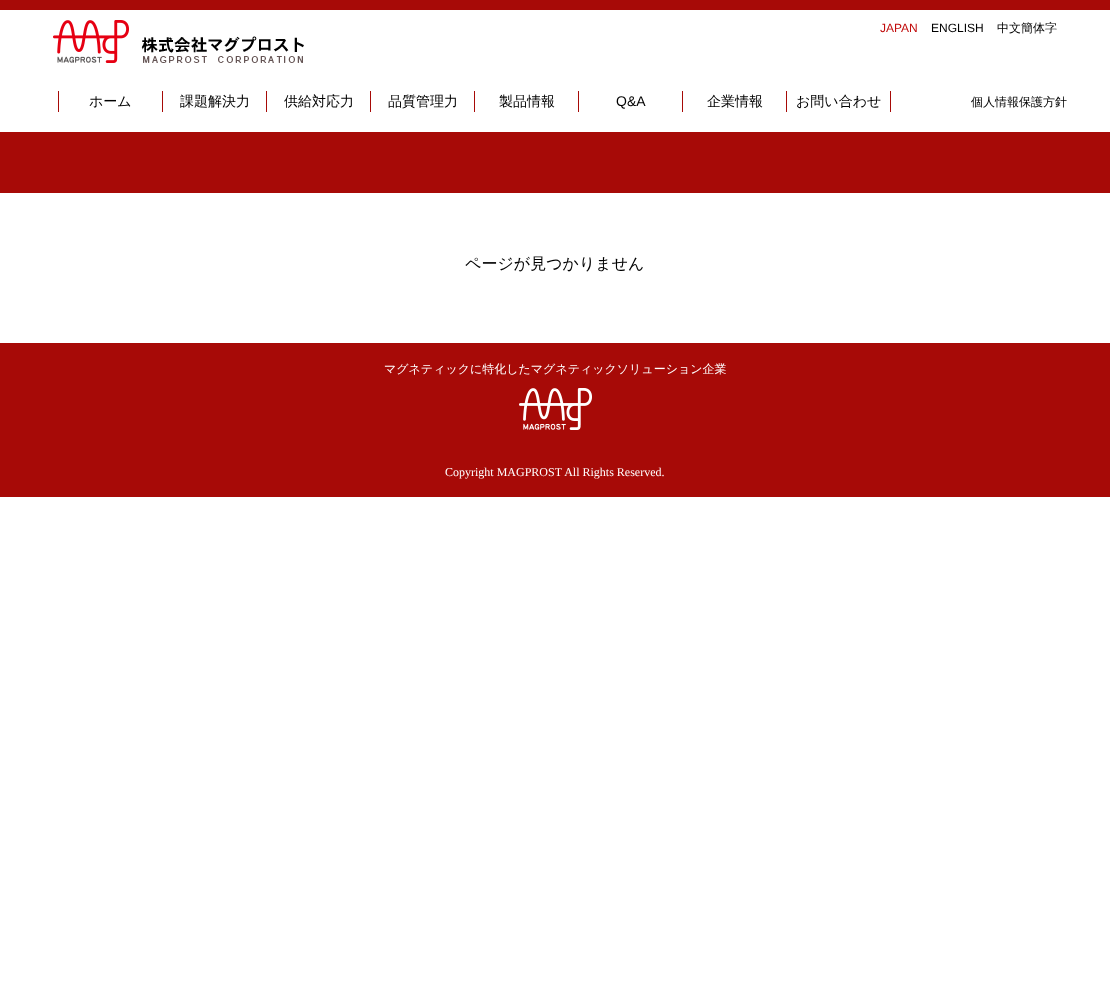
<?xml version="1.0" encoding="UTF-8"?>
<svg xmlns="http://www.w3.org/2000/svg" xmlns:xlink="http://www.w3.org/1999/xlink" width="1110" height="992">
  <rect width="100%" height="100%" fill="#ffffff" />
  <rect width="1110" height="10" fill="#a70a07" />
  <image x="53" y="20" width="251" height="43" xlink:href="image1.png" />
  <rect x="58" y="91" width="1" height="21" fill="#a70a07" />
  <rect x="162" y="91" width="1" height="21" fill="#a70a07" />
  <rect x="266" y="91" width="1" height="21" fill="#a70a07" />
  <rect x="370" y="91" width="1" height="21" fill="#a70a07" />
  <rect x="474" y="91" width="1" height="21" fill="#a70a07" />
  <rect x="578" y="91" width="1" height="21" fill="#a70a07" />
  <rect x="682" y="91" width="1" height="21" fill="#a70a07" />
  <rect x="890" y="91" width="1" height="21" fill="#a70a07" />
  <rect x="786" y="91" width="1" height="21" fill="#a70a07" />
  <rect y="132" width="1110" height="61" fill="#a70a07" />
  <rect y="343" width="1110" height="154" fill="#a70a07" />
  <image x="519" y="388" width="73" height="42" xlink:href="image2.png" />
  <text x="880" y="32" style="font-family: Liberation Sans; font-size: 12px; fill: #c10b0b">JAPAN</text>
  <text x="931" y="32" style="font-family: Liberation Sans; font-size: 12px; fill: #000000">ENGLISH</text>
  <text x="997" y="32" style="font-family: WenQuanYi Zen Hei; font-size: 12px; font-weight: 500; fill: #000000">中文簡体字</text>
  <text x="89" y="106" style="font-family: WenQuanYi Zen Hei; font-size: 14px; font-weight: 500; fill: #000000">ホーム</text>
  <text x="180" y="106" style="font-family: WenQuanYi Zen Hei; font-size: 14px; font-weight: 500; fill: #000000">課題解決力</text>
  <text x="284" y="106" style="font-family: WenQuanYi Zen Hei; font-size: 14px; font-weight: 500; fill: #000000">供給対応力</text>
  <text x="388" y="106" style="font-family: WenQuanYi Zen Hei; font-size: 14px; font-weight: 500; fill: #000000">品質管理力</text>
  <text x="499" y="106" style="font-family: WenQuanYi Zen Hei; font-size: 14px; font-weight: 500; fill: #000000">製品情報</text>
  <text x="616" y="106" style="font-family: Liberation Sans; font-size: 14px; fill: #000000">Q&amp;A</text>
  <text x="707" y="106" style="font-family: WenQuanYi Zen Hei; font-size: 14px; font-weight: 500; fill: #000000">企業情報</text>
  <text x="796" y="106" style="font-family: WenQuanYi Zen Hei; font-size: 14px; font-weight: 500; fill: #000000">お問い合わせ</text>
  <text x="971" y="106" style="font-family: WenQuanYi Zen Hei; font-size: 12px; font-weight: 500; fill: #000000">個人情報保護方針</text>
  <text x="465" y="269" style="font-family: WenQuanYi Zen Hei; font-size: 16px; font-weight: 500; fill: #000000">ページが見つかりません</text>
  <text x="384" y="373" style="font-family: WenQuanYi Zen Hei; font-size: 12px; font-weight: 500; fill: #ffffff">マグネティックに特化したマグネティックソリューション企業</text>
  <text x="445" y="476" style="font-family: Liberation Serif; font-size: 12px; fill: #ffffff">Copyright MAGPROST All Rights Reserved.</text>
</svg>
